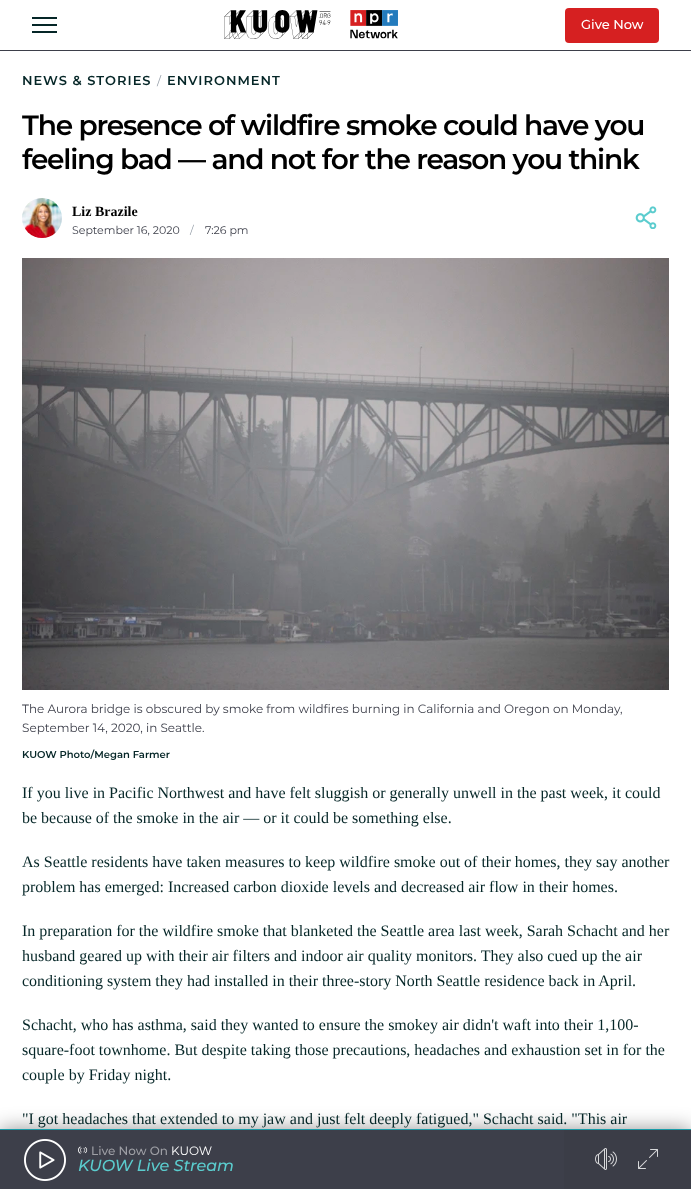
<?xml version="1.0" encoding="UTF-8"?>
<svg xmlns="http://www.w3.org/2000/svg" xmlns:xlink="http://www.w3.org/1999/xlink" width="691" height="1189">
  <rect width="100%" height="100%" fill="#ffffff" />
  <rect y="50" width="691" height="1" fill="#3d3f4a" />
  <rect x="32" y="17" width="25" height="2" fill="#052627" />
  <rect x="32" y="24" width="25" height="2" fill="#052627" />
  <rect x="32" y="31" width="25" height="2" fill="#052627" />
  <image x="224" y="10" width="174" height="29" xlink:href="image1.png" />
  <rect x="565" y="8" width="94" height="35" rx="4" fill="#d62021" />
  <image x="22" y="198" width="40" height="40" xlink:href="image2.png" />
  <image x="635" y="206" width="22" height="23" xlink:href="image3.png" />
  <image x="22" y="258" width="647" height="432" xlink:href="image4.png" />
  <rect y="1129" width="691" height="60" fill="#000000" fill-opacity="0.42" filter="blur(10px)" />
  <rect y="1130" width="564" height="59" fill="#3d3f4a" />
  <rect y="1129" width="691" height="1" fill="#1a9ca8" />
  <image x="24" y="1139" width="42" height="42" xlink:href="image5.png" />
  <image x="78" y="1146" width="10" height="8" xlink:href="image6.png" />
  <rect x="564" y="1130" width="127" height="59" fill="#3b3d47" />
  <image x="595" y="1148" width="22" height="22" xlink:href="image7.png" />
  <image x="638" y="1149" width="20" height="20" xlink:href="image8.png" />
  <text x="581" y="29" style="font-family: Montserrat; font-size: 13px; font-weight: 500; fill: #ffffff">Give Now</text>
  <text x="22" y="85" style="font-family: Montserrat; font-size: 13px; font-weight: 600; letter-spacing: 1px; fill: #052627">NEWS &amp; STORIES</text>
  <text x="157" y="85" style="font-family: Montserrat; font-size: 12px; fill: #99a1ab">/</text>
  <text x="167" y="85" style="font-family: Montserrat; font-size: 13px; font-weight: 600; letter-spacing: 1px; fill: #052627">ENVIRONMENT</text>
  <text x="22" y="135" style="font-family: Montserrat; font-size: 28px; font-weight: 600; letter-spacing: -1.2px; fill: #000000">The presence of wildfire smoke could have you</text>
  <text x="22" y="169" style="font-family: Montserrat; font-size: 28px; font-weight: 600; letter-spacing: -1.2px; fill: #000000">feeling bad — and not for the reason you think</text>
  <text x="72" y="216" style="font-family: Liberation Serif; font-size: 14px; font-weight: bold; fill: #000000">Liz Brazile</text>
  <text x="72" y="234" style="font-family: Montserrat; font-size: 11px; fill: #3d3f4a">September 16, 2020</text>
  <text x="190" y="234" style="font-family: Montserrat; font-size: 11px; fill: #99a1ab">/</text>
  <text x="205" y="234" style="font-family: Montserrat; font-size: 11px; fill: #3d3f4a">7:26 pm</text>
  <text x="22" y="713" style="font-family: Montserrat; font-size: 12px; fill: #3d3f4a">The Aurora bridge is obscured by smoke from wildfires burning in California and Oregon on Monday,</text>
  <text x="22" y="732" style="font-family: Montserrat; font-size: 12px; fill: #3d3f4a">September 14, 2020, in Seattle.</text>
  <text x="22" y="758" style="font-family: Montserrat; font-size: 10px; font-weight: 600; fill: #052627">KUOW Photo/Megan Farmer</text>
  <text x="22" y="798" style="font-family: Liberation Serif; font-size: 16px; fill: #052627">If you live in Pacific Northwest and have felt sluggish or generally unwell in the past week, it could</text>
  <text x="22" y="823" style="font-family: Liberation Serif; font-size: 16px; fill: #052627">be because of the smoke in the air — or it could be something else.</text>
  <text x="22" y="867" style="font-family: Liberation Serif; font-size: 16px; fill: #052627">As Seattle residents have taken measures to keep wildfire smoke out of their homes, they say another</text>
  <text x="22" y="892" style="font-family: Liberation Serif; font-size: 16px; fill: #052627">problem has emerged: Increased carbon dioxide levels and decreased air flow in their homes.</text>
  <text x="22" y="936" style="font-family: Liberation Serif; font-size: 16px; fill: #052627">In preparation for the wildfire smoke that blanketed the Seattle area last week, Sarah Schacht and her</text>
  <text x="22" y="961" style="font-family: Liberation Serif; font-size: 16px; fill: #052627">husband geared up with their air filters and indoor air quality monitors. They also cued up the air</text>
  <text x="22" y="986" style="font-family: Liberation Serif; font-size: 16px; fill: #052627">conditioning system they had installed in their three-story North Seattle residence back in April.</text>
  <text x="22" y="1030" style="font-family: Liberation Serif; font-size: 16px; fill: #052627">Schacht, who has asthma, said they wanted to ensure the smokey air didn't waft into their 1,100-</text>
  <text x="22" y="1055" style="font-family: Liberation Serif; font-size: 16px; fill: #052627">square-foot townhome. But despite taking those precautions, headaches and exhaustion set in for the</text>
  <text x="22" y="1080" style="font-family: Liberation Serif; font-size: 16px; fill: #052627">couple by Friday night.</text>
  <text x="22" y="1124" style="font-family: Liberation Serif; font-size: 16px; fill: #052627">"I got headaches that extended to my jaw and just felt deeply fatigued," Schacht said. "This air</text>
  <text x="91" y="1155" style="font-family: Montserrat; font-size: 12px; font-weight: 500; fill: #9e9fa5">Live Now On</text>
  <text x="171" y="1155" style="font-family: Montserrat; font-size: 12px; fill: #ffffff">KUOW</text>
  <text x="78" y="1171" style="font-family: Montserrat; font-size: 16px; font-weight: 500; font-style: italic; fill: #5bccce">KUOW Live Stream</text>
</svg>
